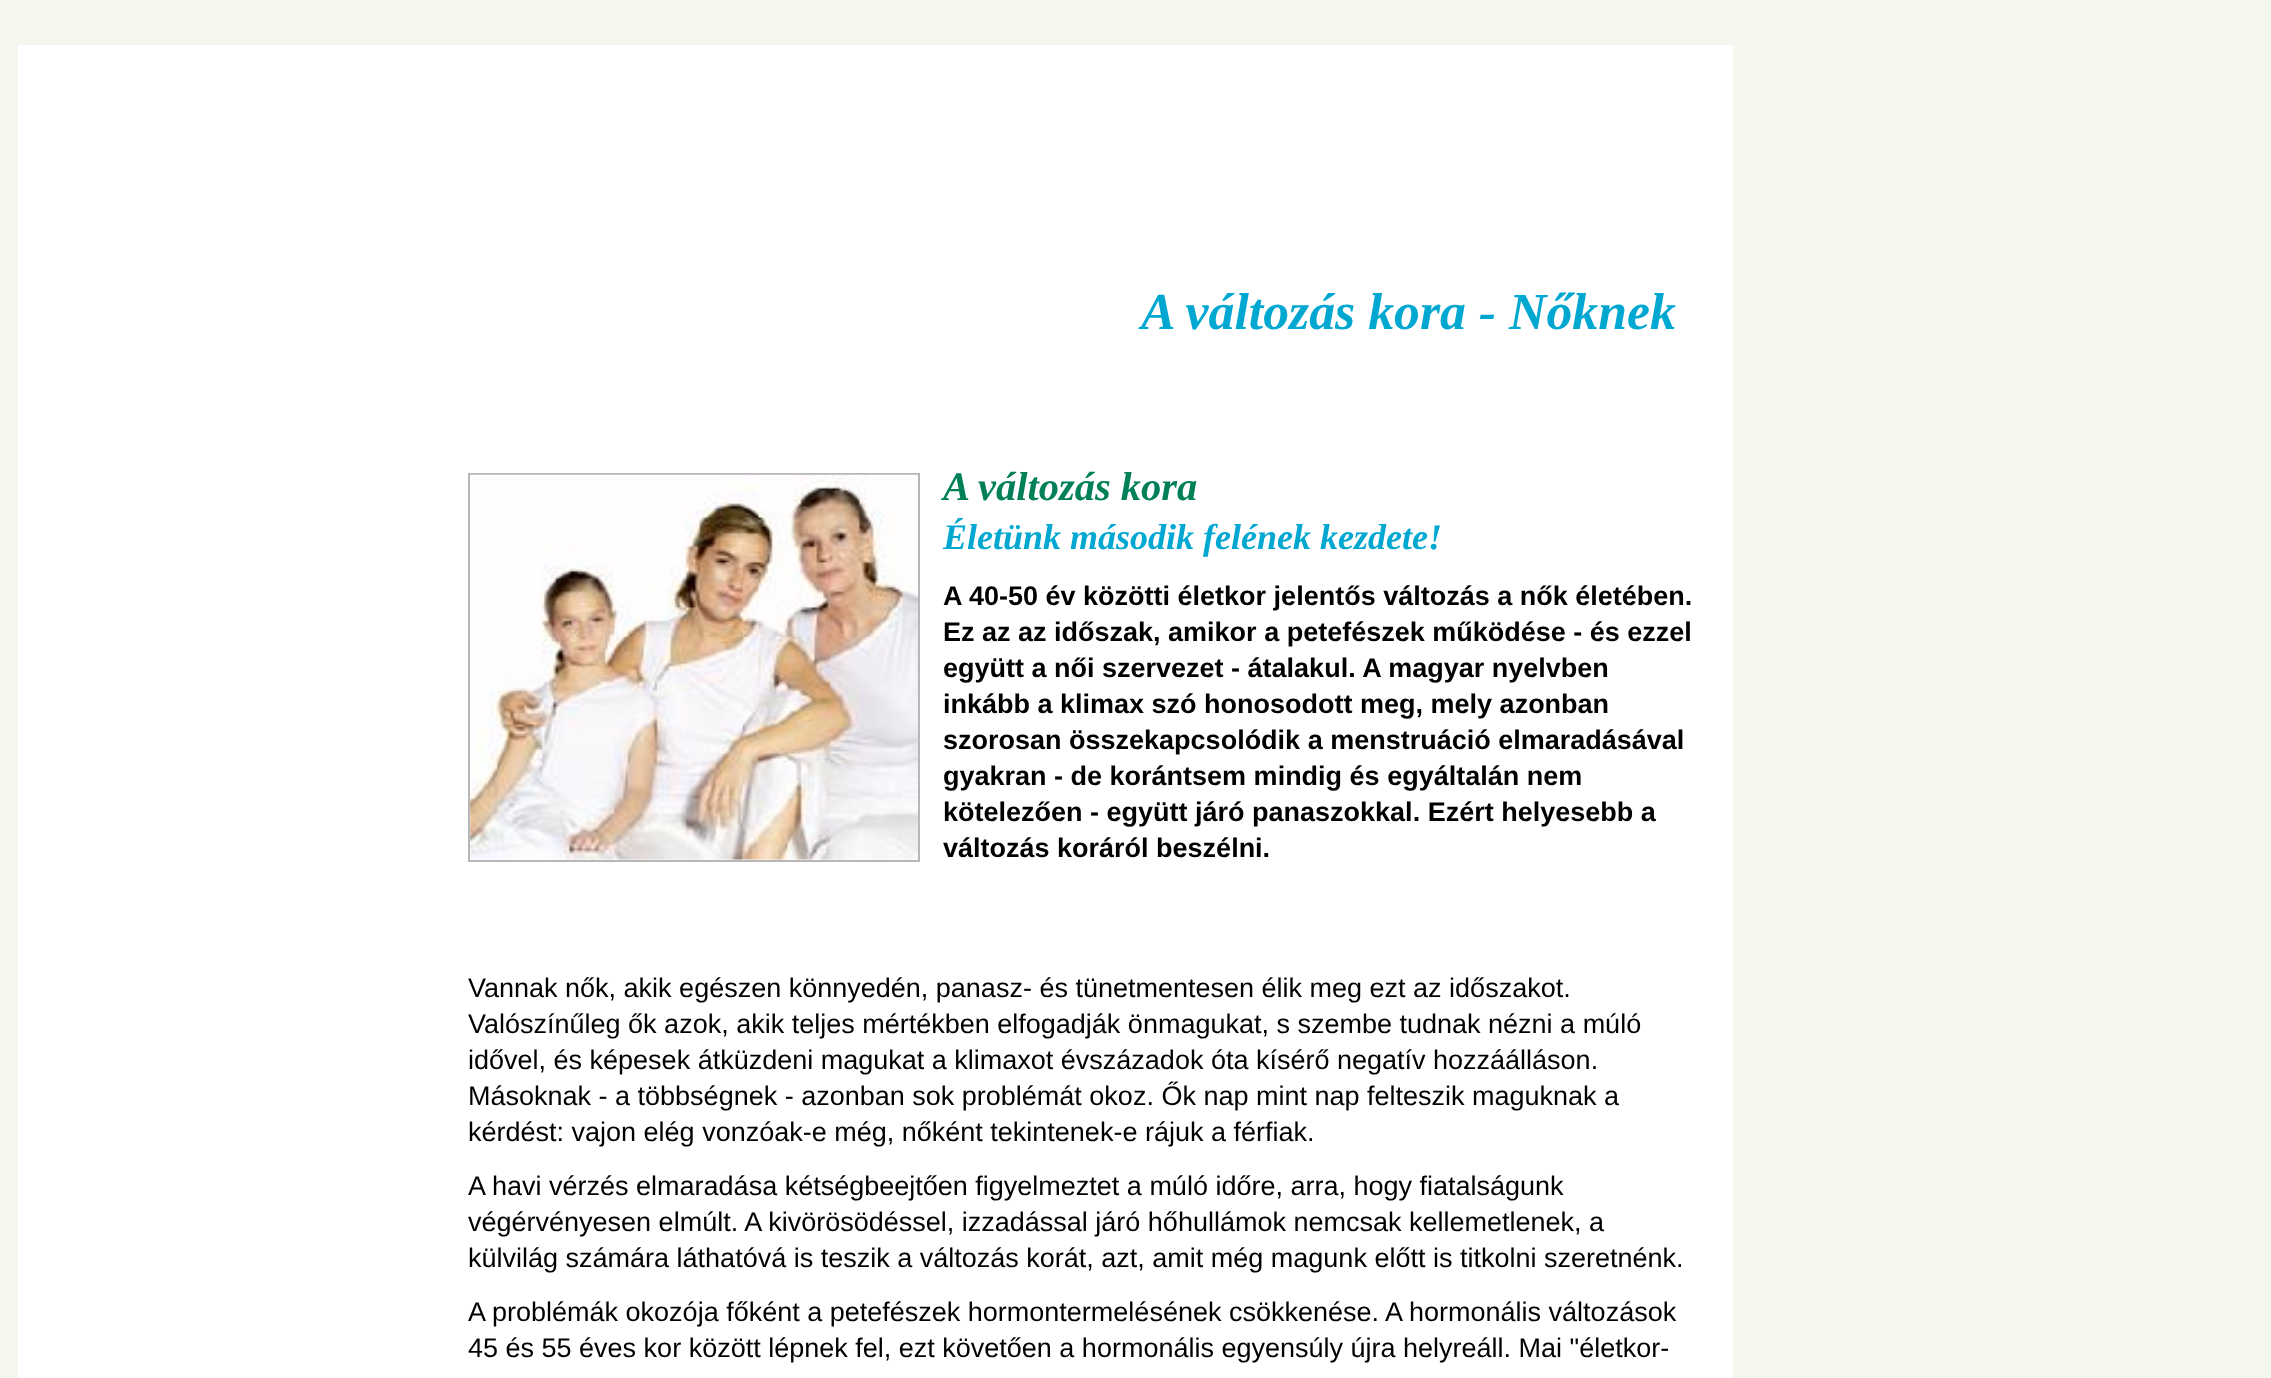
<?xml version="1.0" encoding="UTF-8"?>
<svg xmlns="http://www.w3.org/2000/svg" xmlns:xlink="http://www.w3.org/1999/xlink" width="2271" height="1378">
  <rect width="100%" height="100%" fill="#f4f7ed" />
  <rect x="18" y="45" width="1715" height="1333" fill="#ffffff" />
  <rect x="469" y="474" width="450" height="387" fill="none" stroke="#b7b7b7" stroke-width="2" />
  <image x="470" y="474" width="448" height="386" xlink:href="image1.png" />
  <text x="1141" y="329" style="font-family: Liberation Serif; font-size: 51.75px; font-weight: bold; font-style: italic; fill: #00a7d1">A változás kora - Nőknek</text>
  <text x="943" y="500" style="font-family: Liberation Serif; font-size: 40.5px; font-weight: bold; font-style: italic; fill: #007f59">A változás kora</text>
  <text x="943" y="549" style="font-family: Liberation Serif; font-size: 36px; font-weight: bold; font-style: italic; fill: #00a7d1">Életünk második felének kezdete!</text>
  <text x="943" y="605" style="font-family: Liberation Sans; font-size: 27px; font-weight: bold; fill: #000000">A 40-50 év közötti életkor jelentős változás a nők életében.</text>
  <text x="943" y="641" style="font-family: Liberation Sans; font-size: 27px; font-weight: bold; fill: #000000">Ez az az időszak, amikor a petefészek működése - és ezzel</text>
  <text x="943" y="677" style="font-family: Liberation Sans; font-size: 27px; font-weight: bold; fill: #000000">együtt a női szervezet - átalakul. A magyar nyelvben</text>
  <text x="943" y="713" style="font-family: Liberation Sans; font-size: 27px; font-weight: bold; fill: #000000">inkább a klimax szó honosodott meg, mely azonban</text>
  <text x="943" y="749" style="font-family: Liberation Sans; font-size: 27px; font-weight: bold; fill: #000000">szorosan összekapcsolódik a menstruáció elmaradásával</text>
  <text x="943" y="785" style="font-family: Liberation Sans; font-size: 27px; font-weight: bold; fill: #000000">gyakran - de korántsem mindig és egyáltalán nem</text>
  <text x="943" y="821" style="font-family: Liberation Sans; font-size: 27px; font-weight: bold; fill: #000000">kötelezően - együtt járó panaszokkal. Ezért helyesebb a</text>
  <text x="943" y="857" style="font-family: Liberation Sans; font-size: 27px; font-weight: bold; fill: #000000">változás koráról beszélni.</text>
  <text x="468" y="997" style="font-family: Liberation Sans; font-size: 27px; fill: #000000">Vannak nők, akik egészen könnyedén, panasz- és tünetmentesen élik meg ezt az időszakot.</text>
  <text x="468" y="1033" style="font-family: Liberation Sans; font-size: 27px; fill: #000000">Valószínűleg ők azok, akik teljes mértékben elfogadják önmagukat, s szembe tudnak nézni a múló</text>
  <text x="468" y="1069" style="font-family: Liberation Sans; font-size: 27px; fill: #000000">idővel, és képesek átküzdeni magukat a klimaxot évszázadok óta kísérő negatív hozzáálláson.</text>
  <text x="468" y="1105" style="font-family: Liberation Sans; font-size: 27px; fill: #000000">Másoknak - a többségnek - azonban sok problémát okoz. Ők nap mint nap felteszik maguknak a</text>
  <text x="468" y="1141" style="font-family: Liberation Sans; font-size: 27px; fill: #000000">kérdést: vajon elég vonzóak-e még, nőként tekintenek-e rájuk a férfiak.</text>
  <text x="468" y="1195" style="font-family: Liberation Sans; font-size: 27px; fill: #000000">A havi vérzés elmaradása kétségbeejtően figyelmeztet a múló időre, arra, hogy fiatalságunk</text>
  <text x="468" y="1231" style="font-family: Liberation Sans; font-size: 27px; fill: #000000">végérvényesen elmúlt. A kivörösödéssel, izzadással járó hőhullámok nemcsak kellemetlenek, a</text>
  <text x="468" y="1267" style="font-family: Liberation Sans; font-size: 27px; fill: #000000">külvilág számára láthatóvá is teszik a változás korát, azt, amit még magunk előtt is titkolni szeretnénk.</text>
  <text x="468" y="1321" style="font-family: Liberation Sans; font-size: 27px; fill: #000000">A problémák okozója főként a petefészek hormontermelésének csökkenése. A hormonális változások</text>
  <text x="468" y="1357" style="font-family: Liberation Sans; font-size: 27px; fill: #000000">45 és 55 éves kor között lépnek fel, ezt követően a hormonális egyensúly újra helyreáll. Mai "életkor-</text>
</svg>
